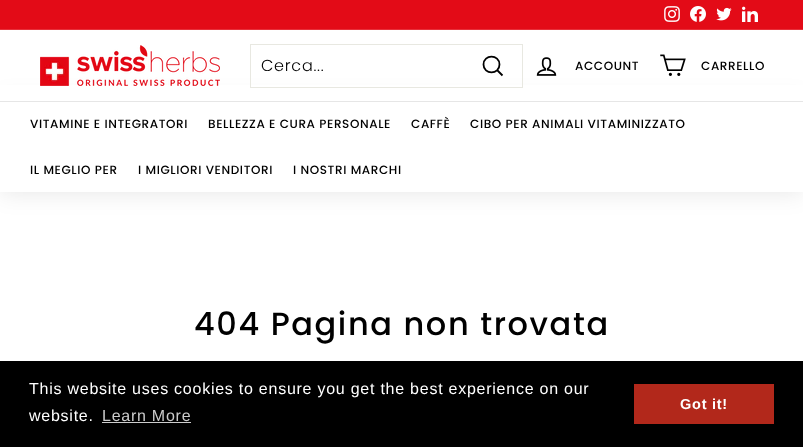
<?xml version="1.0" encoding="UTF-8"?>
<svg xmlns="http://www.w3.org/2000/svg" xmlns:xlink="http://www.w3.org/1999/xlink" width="803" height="447">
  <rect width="100%" height="100%" fill="#ffffff" />
  <rect width="803" height="29" fill="#e30b17" />
  <image x="664" y="6" width="16" height="16" xlink:href="image1.png" />
  <image x="690" y="6" width="16" height="16" xlink:href="image2.png" />
  <image x="716" y="7" width="16" height="14" xlink:href="image3.png" />
  <image x="742" y="6" width="16" height="16" xlink:href="image4.png" />
  <rect y="29" width="803" height="1" fill="#e7303a" />
  <rect y="101" width="803" height="91" fill="#000000" fill-opacity="0.1" filter="blur(12.5px)" />
  <rect y="85" width="803" height="16" fill="#ffffff" />
  <image x="40" y="45" width="180" height="41" xlink:href="image5.png" />
  <rect x="250.5" y="44.5" width="272" height="43" fill="none" stroke="#e8e8e1" />
  <path d="M 499.5 64.5 c 0 10.5 -16 10.5 -16 0 c 0 -10.5 16 -10.5 16 0 z m 3 11 l -5 -5" fill="none" stroke="#000000" stroke-width="1.8" />
  <image x="536" y="57" width="21" height="19" xlink:href="image6.png" />
  <image x="660" y="54" width="26" height="22" xlink:href="image7.png" />
  <rect y="102" width="803" height="90" fill="#ffffff" />
  <rect y="101" width="803" height="1" fill="#e6e6e6" />
  <rect y="361" width="803" height="86" fill="#000000" />
  <rect x="102" y="422" width="89" height="1" fill="#cccccc" />
  <rect x="634" y="384" width="140" height="40" fill="#b2281b" />
  <text x="261" y="71" style="font-family: Poppins; font-size: 16px; font-weight: 300; letter-spacing: 0.75px; fill: #000000">Cerca...</text>
  <text x="575" y="70" style="font-family: Poppins; font-size: 12px; font-weight: 500; letter-spacing: 0.6px; fill: #000000">ACCOUNT</text>
  <text x="701" y="70" style="font-family: Poppins; font-size: 12px; font-weight: 500; letter-spacing: 0.6px; fill: #000000">CARRELLO</text>
  <text x="30" y="128" style="font-family: Poppins; font-size: 12px; font-weight: 500; letter-spacing: 0.6px; fill: #000000">VITAMINE E INTEGRATORI</text>
  <text x="208" y="128" style="font-family: Poppins; font-size: 12px; font-weight: 500; letter-spacing: 0.6px; fill: #000000">BELLEZZA E CURA PERSONALE</text>
  <text x="411" y="128" style="font-family: Poppins; font-size: 12px; font-weight: 500; letter-spacing: 0.6px; fill: #000000">CAFFÈ</text>
  <text x="470" y="128" style="font-family: Poppins; font-size: 12px; font-weight: 500; letter-spacing: 0.6px; fill: #000000">CIBO PER ANIMALI VITAMINIZZATO</text>
  <text x="30" y="174" style="font-family: Poppins; font-size: 12px; font-weight: 500; letter-spacing: 0.6px; fill: #000000">IL MEGLIO PER</text>
  <text x="138" y="174" style="font-family: Poppins; font-size: 12px; font-weight: 500; letter-spacing: 0.6px; fill: #000000">I MIGLIORI VENDITORI</text>
  <text x="293" y="174" style="font-family: Poppins; font-size: 12px; font-weight: 500; letter-spacing: 0.6px; fill: #000000">I NOSTRI MARCHI</text>
  <text x="194" y="335" style="font-family: Poppins; font-size: 32px; font-weight: 500; letter-spacing: 1.6px; fill: #000000">404 Pagina non trovata</text>
  <text x="29" y="394" style="font-family: Liberation Sans; font-size: 16px; letter-spacing: 0.75px; fill: #ffffff">This website uses cookies to ensure you get the best experience on our</text>
  <text x="29" y="421" style="font-family: Liberation Sans; font-size: 16px; letter-spacing: 0.75px; fill: #ffffff">website.</text>
  <text x="102" y="421" style="font-family: Liberation Sans; font-size: 16px; letter-spacing: 0.75px; fill: #cccccc">Learn More</text>
  <text x="680" y="409" style="font-family: Liberation Sans; font-size: 14.5px; font-weight: bold; letter-spacing: 0.75px; fill: #ffffff">Got it!</text>
</svg>
